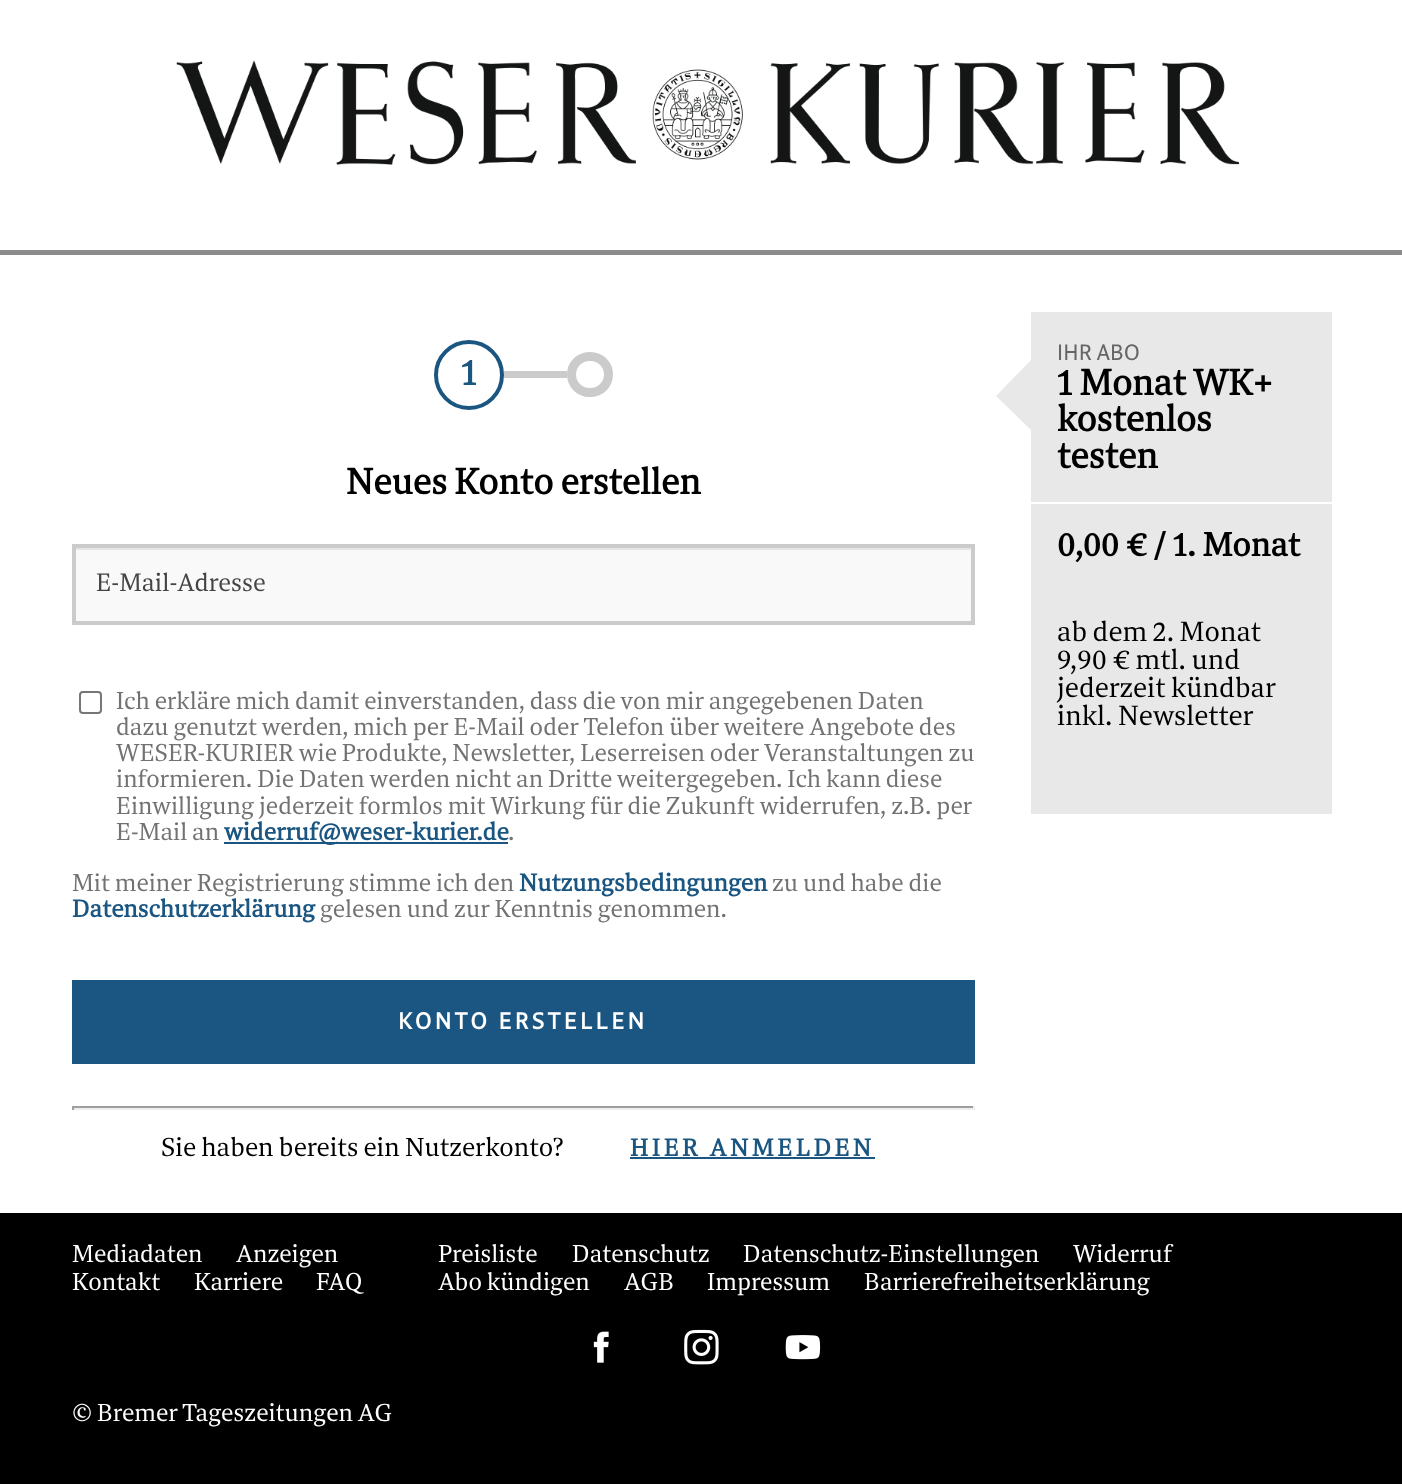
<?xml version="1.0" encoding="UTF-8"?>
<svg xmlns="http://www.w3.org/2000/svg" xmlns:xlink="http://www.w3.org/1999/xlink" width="1402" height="1484">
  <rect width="100%" height="100%" fill="#ffffff" />
  <rect y="250" width="1402" height="5" fill="#8c8c8c" />
  <image x="176" y="60" width="1064" height="105" xlink:href="image1.png" />
  <circle cx="469" cy="375" r="33" fill="none" stroke="#1a5681" stroke-width="4" />
  <rect x="504" y="371" width="63" height="7" fill="#cbcbcb" />
  <rect x="571.5" y="356.5" width="37" height="36" rx="18" fill="none" stroke="#cbcbcb" stroke-width="9" />
  <rect x="76" y="550" width="895" height="71" fill="#f9f9f9" />
  <rect x="75" y="548" width="896" height="2" fill="#e6e6e6" />
  <rect x="74" y="546" width="899" height="77" fill="none" stroke="#cbcbcb" stroke-width="4" />
  <rect x="80" y="692" width="21" height="21" rx="3" fill="none" stroke="#767676" stroke-width="2" />
  <rect x="224" y="842" width="284" height="2" fill="#1a5681" />
  <rect x="72" y="980" width="903" height="84" fill="#1a5681" />
  <rect x="72" y="1106" width="903" height="2" fill="#9f9f9f" />
  <rect x="973" y="1106" width="2" height="4" fill="#eeeeee" />
  <rect x="72" y="1108" width="903" height="2" fill="#eeeeee" />
  <rect x="72" y="1106" width="2" height="4" fill="#9f9f9f" />
  <rect x="630" y="1157" width="245" height="2" fill="#1a5681" />
  <rect x="1031" y="312" width="301" height="190" fill="#e8e8e8" />
  <path d="M 1031 360 v 70 l -35 -34 z" fill="#e8e8e8" />
  <rect x="1031" y="504" width="301" height="310" fill="#e8e8e8" />
  <rect y="1213" width="1402" height="271" fill="#000000" />
  <image x="593" y="1331" width="16" height="32" xlink:href="image2.png" />
  <image x="684" y="1329" width="35" height="36" xlink:href="image3.png" />
  <image x="785" y="1335" width="36" height="25" xlink:href="image4.png" />
  <text x="461" y="385" style="font-family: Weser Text; font-size: 36.5px; font-weight: bold; fill: #1a5681">1</text>
  <text x="346" y="494" style="font-family: Weser Text; font-size: 36.5px; font-weight: bold; fill: #000000">Neues Konto erstellen</text>
  <text x="96" y="591" style="font-family: Weser Text; font-size: 25.25px; fill: #444444">E-Mail-Adresse</text>
  <text x="116" y="709" style="font-family: Weser Text; font-size: 24.5px; fill: #717372">Ich erkläre mich damit einverstanden, dass die von mir angegebenen Daten</text>
  <text x="116" y="735" style="font-family: Weser Text; font-size: 24.5px; fill: #717372">dazu genutzt werden, mich per E-Mail oder Telefon über weitere Angebote des</text>
  <text x="116" y="761" style="font-family: Weser Text; font-size: 24.5px; fill: #717372">WESER-KURIER wie Produkte, Newsletter, Leserreisen oder Veranstaltungen zu</text>
  <text x="116" y="787" style="font-family: Weser Text; font-size: 24.5px; fill: #717372">informieren. Die Daten werden nicht an Dritte weitergegeben. Ich kann diese</text>
  <text x="116" y="814" style="font-family: Weser Text; font-size: 24.5px; fill: #717372">Einwilligung jederzeit formlos mit Wirkung für die Zukunft widerrufen, z.B. per</text>
  <text x="116" y="840" style="font-family: Weser Text; font-size: 24.5px; fill: #717372">E-Mail an</text>
  <text x="224" y="840" style="font-family: Weser Text; font-size: 24.5px; font-weight: bold; fill: #1a5681">widerruf@weser-kurier.de</text>
  <text x="508" y="840" style="font-family: Weser Text; font-size: 24.5px; fill: #717372">.</text>
  <text x="72" y="891" style="font-family: Weser Text; font-size: 24.5px; fill: #717372">Mit meiner Registrierung stimme ich den</text>
  <text x="519" y="891" style="font-family: Weser Text; font-size: 24.5px; font-weight: bold; fill: #1a5681">Nutzungsbedingungen</text>
  <text x="772" y="891" style="font-family: Weser Text; font-size: 24.5px; fill: #717372">zu und habe die</text>
  <text x="72" y="917" style="font-family: Weser Text; font-size: 24.5px; font-weight: bold; fill: #1a5681">Datenschutzerklärung</text>
  <text x="320" y="917" style="font-family: Weser Text; font-size: 24.5px; fill: #717372">gelesen und zur Kenntnis genommen.</text>
  <text x="398" y="1029" style="font-family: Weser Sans; font-size: 23.25px; font-weight: bold; letter-spacing: 3.5px; fill: #ffffff">KONTO ERSTELLEN</text>
  <text x="161" y="1156" style="font-family: Weser Text; font-size: 26.25px; fill: #000000">Sie haben bereits ein Nutzerkonto?</text>
  <text x="630" y="1156" style="font-family: Weser Text; font-size: 24.5px; font-weight: bold; letter-spacing: 3.5px; fill: #1a5681">HIER ANMELDEN</text>
  <text x="1057" y="360" style="font-family: Weser Sans; font-size: 22.5px; fill: #666666">IHR ABO</text>
  <text x="1057" y="395" style="font-family: Weser Text; font-size: 36.5px; font-weight: bold; fill: #000000">1 Monat WK+</text>
  <text x="1057" y="431" style="font-family: Weser Text; font-size: 36.5px; font-weight: bold; fill: #000000">kostenlos</text>
  <text x="1057" y="468" style="font-family: Weser Text; font-size: 36.5px; font-weight: bold; fill: #000000">testen</text>
  <text x="1057" y="556" style="font-family: Weser Text; font-size: 33.5px; font-weight: bold; fill: #000000">0,00 € / 1. Monat</text>
  <text x="1057" y="641" style="font-family: Weser Text; font-size: 28px; fill: #000000">ab dem 2. Monat</text>
  <text x="1057" y="669" style="font-family: Weser Text; font-size: 28px; fill: #000000">9,90 € mtl. und</text>
  <text x="1057" y="697" style="font-family: Weser Text; font-size: 28px; fill: #000000">jederzeit kündbar</text>
  <text x="1057" y="725" style="font-family: Weser Text; font-size: 28px; fill: #000000">inkl. Newsletter</text>
  <text x="72" y="1262" style="font-family: Weser Text; font-size: 24.6px; fill: #ffffff">Mediadaten</text>
  <text x="236" y="1262" style="font-family: Weser Text; font-size: 24.6px; fill: #ffffff">Anzeigen</text>
  <text x="72" y="1290" style="font-family: Weser Text; font-size: 24.6px; fill: #ffffff">Kontakt</text>
  <text x="194" y="1290" style="font-family: Weser Text; font-size: 24.6px; fill: #ffffff">Karriere</text>
  <text x="316" y="1290" style="font-family: Weser Text; font-size: 24.6px; fill: #ffffff">FAQ</text>
  <text x="438" y="1262" style="font-family: Weser Text; font-size: 24.6px; fill: #ffffff">Preisliste</text>
  <text x="572" y="1262" style="font-family: Weser Text; font-size: 24.6px; fill: #ffffff">Datenschutz</text>
  <text x="743" y="1262" style="font-family: Weser Text; font-size: 24.6px; fill: #ffffff">Datenschutz-Einstellungen</text>
  <text x="1073" y="1262" style="font-family: Weser Text; font-size: 24.6px; fill: #ffffff">Widerruf</text>
  <text x="438" y="1290" style="font-family: Weser Text; font-size: 24.6px; fill: #ffffff">Abo kündigen</text>
  <text x="624" y="1290" style="font-family: Weser Text; font-size: 24.6px; fill: #ffffff">AGB</text>
  <text x="707" y="1290" style="font-family: Weser Text; font-size: 24.6px; fill: #ffffff">Impressum</text>
  <text x="864" y="1290" style="font-family: Weser Text; font-size: 24.6px; fill: #ffffff">Barrierefreiheitserklärung</text>
  <text x="72" y="1421" style="font-family: Weser Text; font-size: 24.6px; fill: #ffffff">© Bremer Tageszeitungen AG</text>
</svg>
